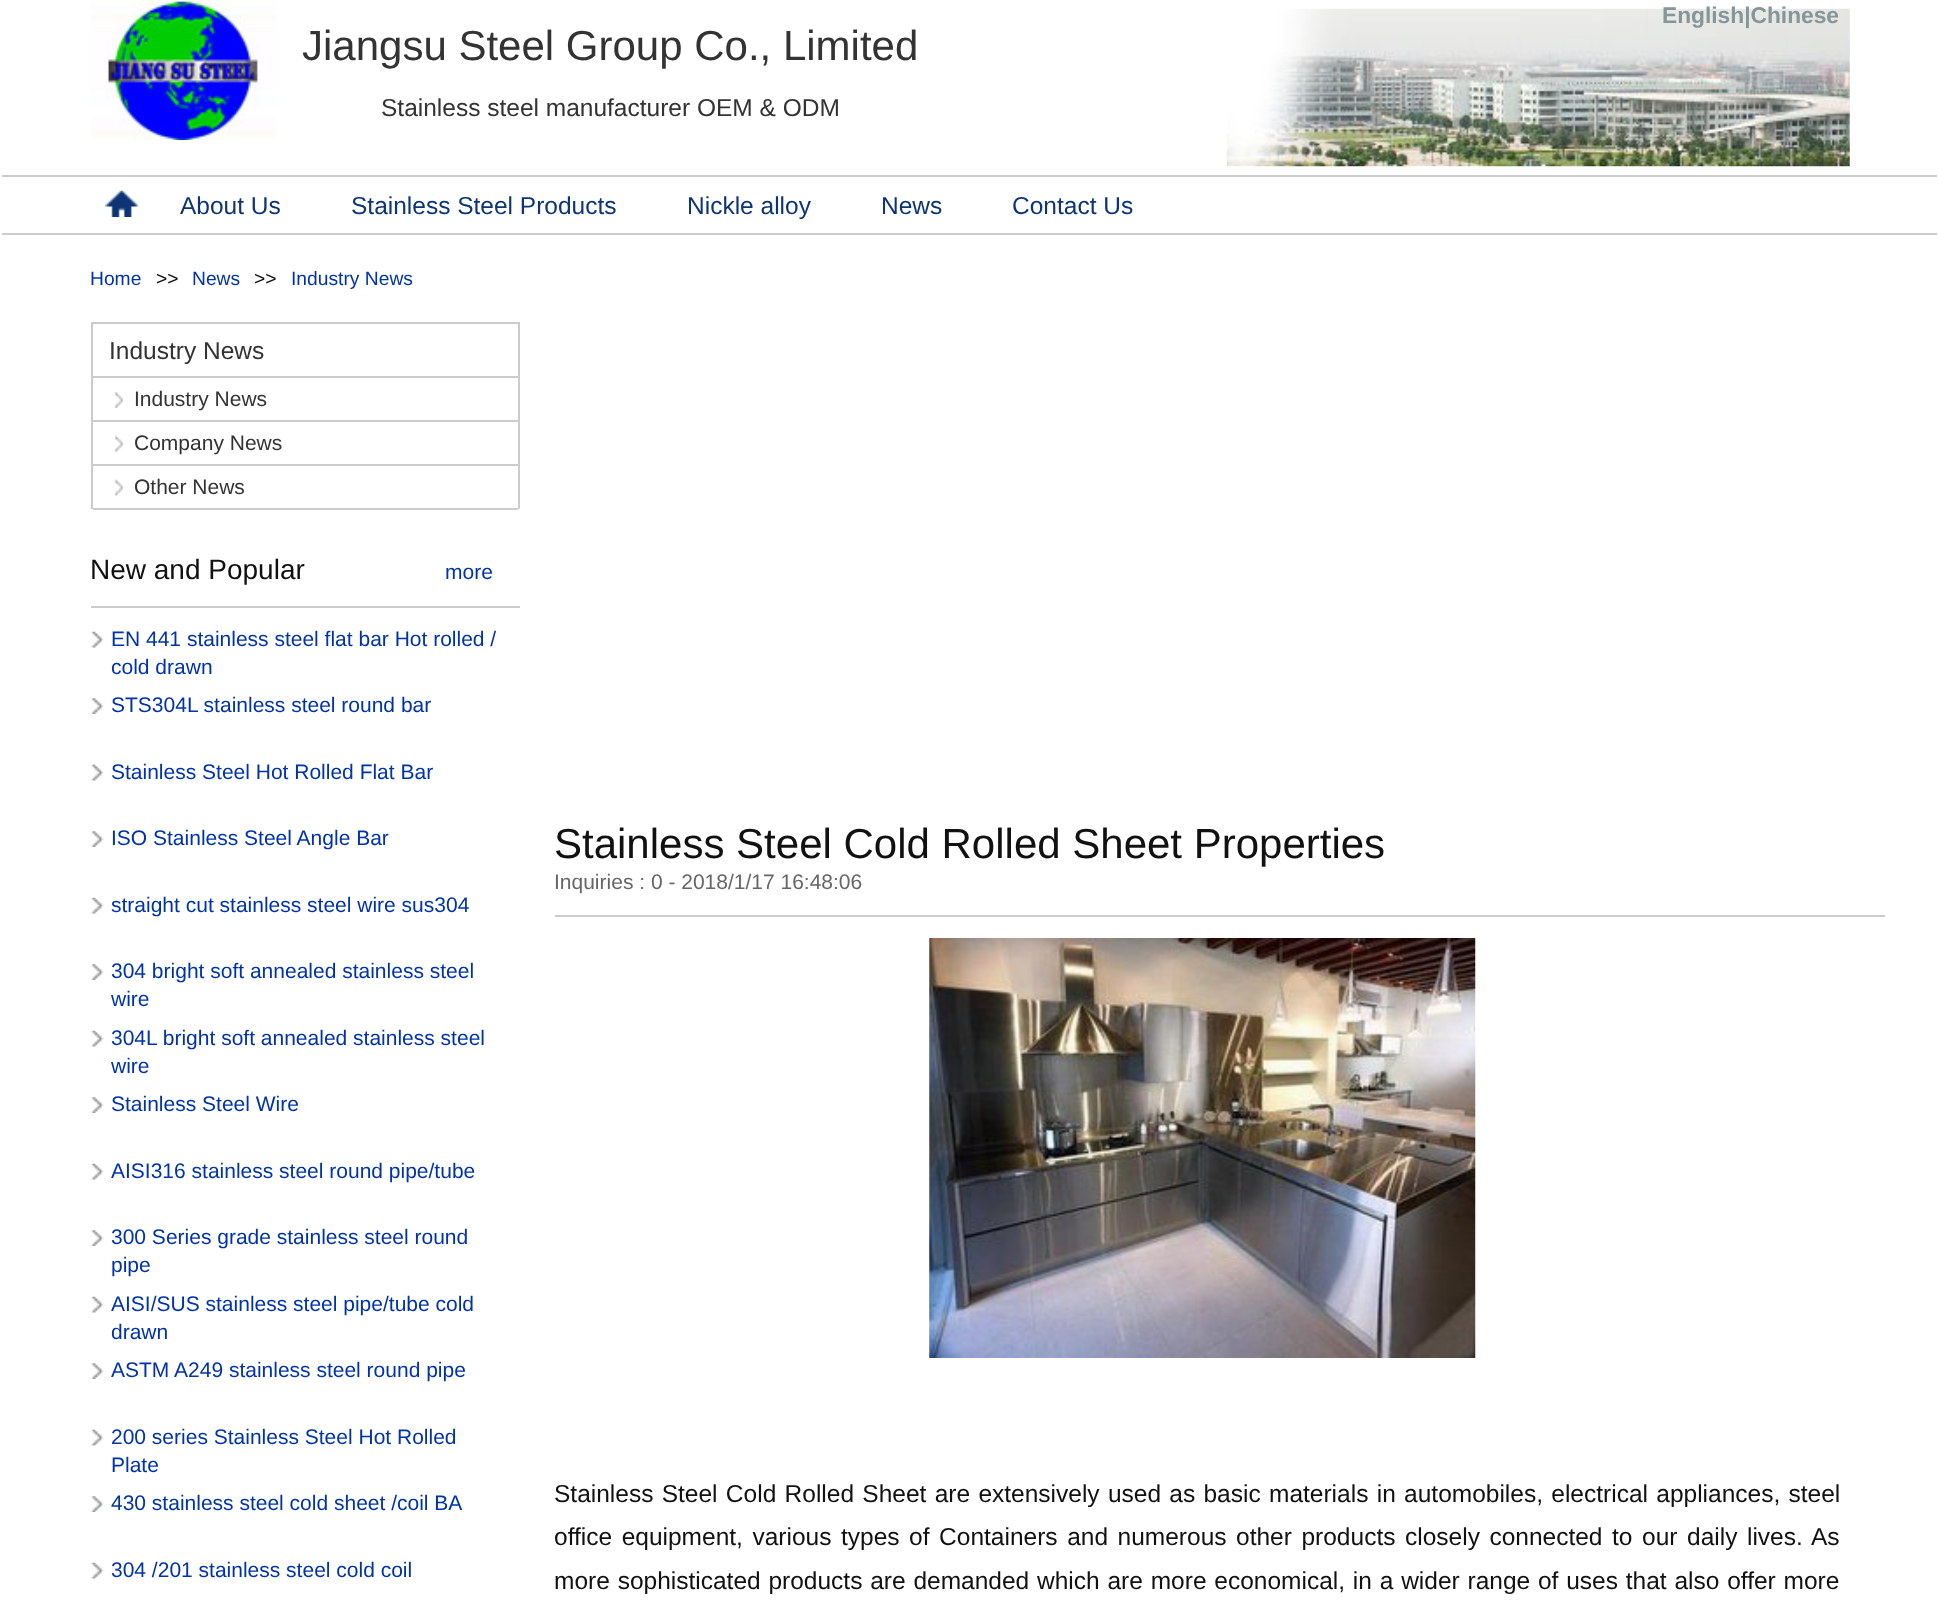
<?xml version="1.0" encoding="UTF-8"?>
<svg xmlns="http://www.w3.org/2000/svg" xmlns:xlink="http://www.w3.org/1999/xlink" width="1939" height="1601">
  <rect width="100%" height="100%" fill="#ffffff" />
  <image x="1226" y="8" width="624" height="159" xlink:href="image1.png" />
  <image x="91" y="0" width="186" height="140" xlink:href="image2.png" />
  <rect x="2" y="175" width="1935" height="2" fill="#cccccc" />
  <rect x="2" y="233" width="1935" height="2" fill="#cccccc" />
  <image x="105" y="190" width="34" height="27" xlink:href="image3.png" />
  <rect x="91" y="322" width="429" height="2" fill="#cccccc" />
  <rect x="518" y="322" width="2" height="187" fill="#cccccc" />
  <rect x="91" y="322" width="2" height="187" fill="#cccccc" />
  <rect x="93" y="376" width="425" height="2" fill="#cccccc" />
  <image x="114" y="392" width="10" height="16" xlink:href="image4.png" />
  <rect x="93" y="420" width="425" height="2" fill="#cccccc" />
  <image x="114" y="435" width="10" height="17" xlink:href="image5.png" />
  <rect x="93" y="464" width="425" height="2" fill="#cccccc" />
  <image x="114" y="479" width="10" height="17" xlink:href="image6.png" />
  <rect x="93" y="508" width="425" height="2" fill="#cccccc" />
  <rect x="91" y="606" width="429" height="2" fill="#cccccc" />
  <image x="91" y="631" width="13" height="17" xlink:href="image7.png" />
  <image x="91" y="698" width="13" height="16" xlink:href="image8.png" />
  <image x="91" y="764" width="13" height="17" xlink:href="image7.png" />
  <image x="91" y="831" width="13" height="16" xlink:href="image8.png" />
  <image x="91" y="897" width="13" height="17" xlink:href="image7.png" />
  <image x="91" y="964" width="13" height="16" xlink:href="image8.png" />
  <image x="91" y="1030" width="13" height="17" xlink:href="image7.png" />
  <image x="91" y="1097" width="13" height="16" xlink:href="image8.png" />
  <image x="91" y="1163" width="13" height="17" xlink:href="image7.png" />
  <image x="91" y="1230" width="13" height="16" xlink:href="image8.png" />
  <image x="91" y="1296" width="13" height="17" xlink:href="image7.png" />
  <image x="91" y="1363" width="13" height="16" xlink:href="image8.png" />
  <image x="91" y="1429" width="13" height="17" xlink:href="image7.png" />
  <image x="91" y="1496" width="13" height="16" xlink:href="image8.png" />
  <image x="91" y="1562" width="13" height="17" xlink:href="image7.png" />
  <rect x="555" y="915" width="1330" height="2" fill="#cccccc" />
  <image x="929" y="938" width="547" height="420" xlink:href="image9.png" />
  <text x="1662" y="23" style="font-family: Liberation Sans; font-size: 22.75px; font-weight: bold; fill: #849697">English|Chinese</text>
  <text x="302" y="60" style="font-family: Liberation Sans; font-size: 42px; fill: #333333">Jiangsu Steel Group Co., Limited</text>
  <text x="381" y="116" style="font-family: Liberation Sans; font-size: 24.5px; fill: #333333">Stainless steel manufacturer OEM &amp; ODM</text>
  <text x="180" y="214" style="font-family: Liberation Sans; font-size: 24.5px; fill: #0d3575">About Us</text>
  <text x="351" y="214" style="font-family: Liberation Sans; font-size: 24.5px; fill: #0d3575">Stainless Steel Products</text>
  <text x="687" y="214" style="font-family: Liberation Sans; font-size: 24.5px; fill: #0d3575">Nickle alloy</text>
  <text x="881" y="214" style="font-family: Liberation Sans; font-size: 24.5px; fill: #0d3575">News</text>
  <text x="1012" y="214" style="font-family: Liberation Sans; font-size: 24.5px; fill: #0d3575">Contact Us</text>
  <text x="90" y="285" style="font-family: Liberation Sans; font-size: 19.25px; fill: #0033aa">Home</text>
  <text x="156" y="285" style="font-family: Liberation Sans; font-size: 19.25px; fill: #111111">&gt;&gt;</text>
  <text x="192" y="285" style="font-family: Liberation Sans; font-size: 19.25px; fill: #0033aa">News</text>
  <text x="254" y="285" style="font-family: Liberation Sans; font-size: 19.25px; fill: #111111">&gt;&gt;</text>
  <text x="291" y="285" style="font-family: Liberation Sans; font-size: 19.25px; fill: #0033aa">Industry News</text>
  <text x="109" y="359" style="font-family: Liberation Sans; font-size: 24.5px; fill: #333333">Industry News</text>
  <text x="134" y="406" style="font-family: Liberation Sans; font-size: 21px; fill: #333333">Industry News</text>
  <text x="134" y="450" style="font-family: Liberation Sans; font-size: 21px; fill: #333333">Company News</text>
  <text x="134" y="494" style="font-family: Liberation Sans; font-size: 21px; fill: #333333">Other News</text>
  <text x="90" y="579" style="font-family: Liberation Sans; font-size: 28px; fill: #111111">New and Popular</text>
  <text x="445" y="579" style="font-family: Liberation Sans; font-size: 21px; fill: #0033aa">more</text>
  <text x="111" y="646" style="font-family: Liberation Sans; font-size: 21px; fill: #0033aa">EN 441 stainless steel flat bar Hot rolled /</text>
  <text x="111" y="674" style="font-family: Liberation Sans; font-size: 21px; fill: #0033aa">cold drawn</text>
  <text x="111" y="712" style="font-family: Liberation Sans; font-size: 21px; fill: #0033aa">STS304L stainless steel round bar</text>
  <text x="111" y="779" style="font-family: Liberation Sans; font-size: 21px; fill: #0033aa">Stainless Steel Hot Rolled Flat Bar</text>
  <text x="111" y="845" style="font-family: Liberation Sans; font-size: 21px; fill: #0033aa">ISO Stainless Steel Angle Bar</text>
  <text x="111" y="912" style="font-family: Liberation Sans; font-size: 21px; fill: #0033aa">straight cut stainless steel wire sus304</text>
  <text x="111" y="978" style="font-family: Liberation Sans; font-size: 21px; fill: #0033aa">304 bright soft annealed stainless steel</text>
  <text x="111" y="1006" style="font-family: Liberation Sans; font-size: 21px; fill: #0033aa">wire</text>
  <text x="111" y="1045" style="font-family: Liberation Sans; font-size: 21px; fill: #0033aa">304L bright soft annealed stainless steel</text>
  <text x="111" y="1073" style="font-family: Liberation Sans; font-size: 21px; fill: #0033aa">wire</text>
  <text x="111" y="1111" style="font-family: Liberation Sans; font-size: 21px; fill: #0033aa">Stainless Steel Wire</text>
  <text x="111" y="1178" style="font-family: Liberation Sans; font-size: 21px; fill: #0033aa">AISI316 stainless steel round pipe/tube</text>
  <text x="111" y="1244" style="font-family: Liberation Sans; font-size: 21px; fill: #0033aa">300 Series grade stainless steel round</text>
  <text x="111" y="1272" style="font-family: Liberation Sans; font-size: 21px; fill: #0033aa">pipe</text>
  <text x="111" y="1311" style="font-family: Liberation Sans; font-size: 21px; fill: #0033aa">AISI/SUS stainless steel pipe/tube cold</text>
  <text x="111" y="1339" style="font-family: Liberation Sans; font-size: 21px; fill: #0033aa">drawn</text>
  <text x="111" y="1377" style="font-family: Liberation Sans; font-size: 21px; fill: #0033aa">ASTM A249 stainless steel round pipe</text>
  <text x="111" y="1444" style="font-family: Liberation Sans; font-size: 21px; fill: #0033aa">200 series Stainless Steel Hot Rolled</text>
  <text x="111" y="1472" style="font-family: Liberation Sans; font-size: 21px; fill: #0033aa">Plate</text>
  <text x="111" y="1510" style="font-family: Liberation Sans; font-size: 21px; fill: #0033aa">430 stainless steel cold sheet /coil BA</text>
  <text x="111" y="1577" style="font-family: Liberation Sans; font-size: 21px; fill: #0033aa">304 /201 stainless steel cold coil</text>
  <text x="554" y="858" style="font-family: Liberation Sans; font-size: 42px; fill: #111111">Stainless Steel Cold Rolled Sheet Properties</text>
  <text x="554" y="889" style="font-family: Liberation Sans; font-size: 21px; fill: #666666">Inquiries : 0 - 2018/1/17 16:48:06</text>
  <text x="554" y="1502" word-spacing="1.5" style="font-family: Liberation Sans; font-size: 24.5px; fill: #111111">Stainless Steel Cold Rolled Sheet are extensively used as basic materials in automobiles, electrical appliances, steel</text>
  <text x="554" y="1545" word-spacing="2.75" style="font-family: Liberation Sans; font-size: 24.5px; fill: #111111">office equipment, various types of Containers and numerous other products closely connected to our daily lives. As</text>
  <text x="554" y="1589" word-spacing="1" style="font-family: Liberation Sans; font-size: 24.5px; fill: #111111">more sophisticated products are demanded which are more economical, in a wider range of uses that also offer more</text>
</svg>
